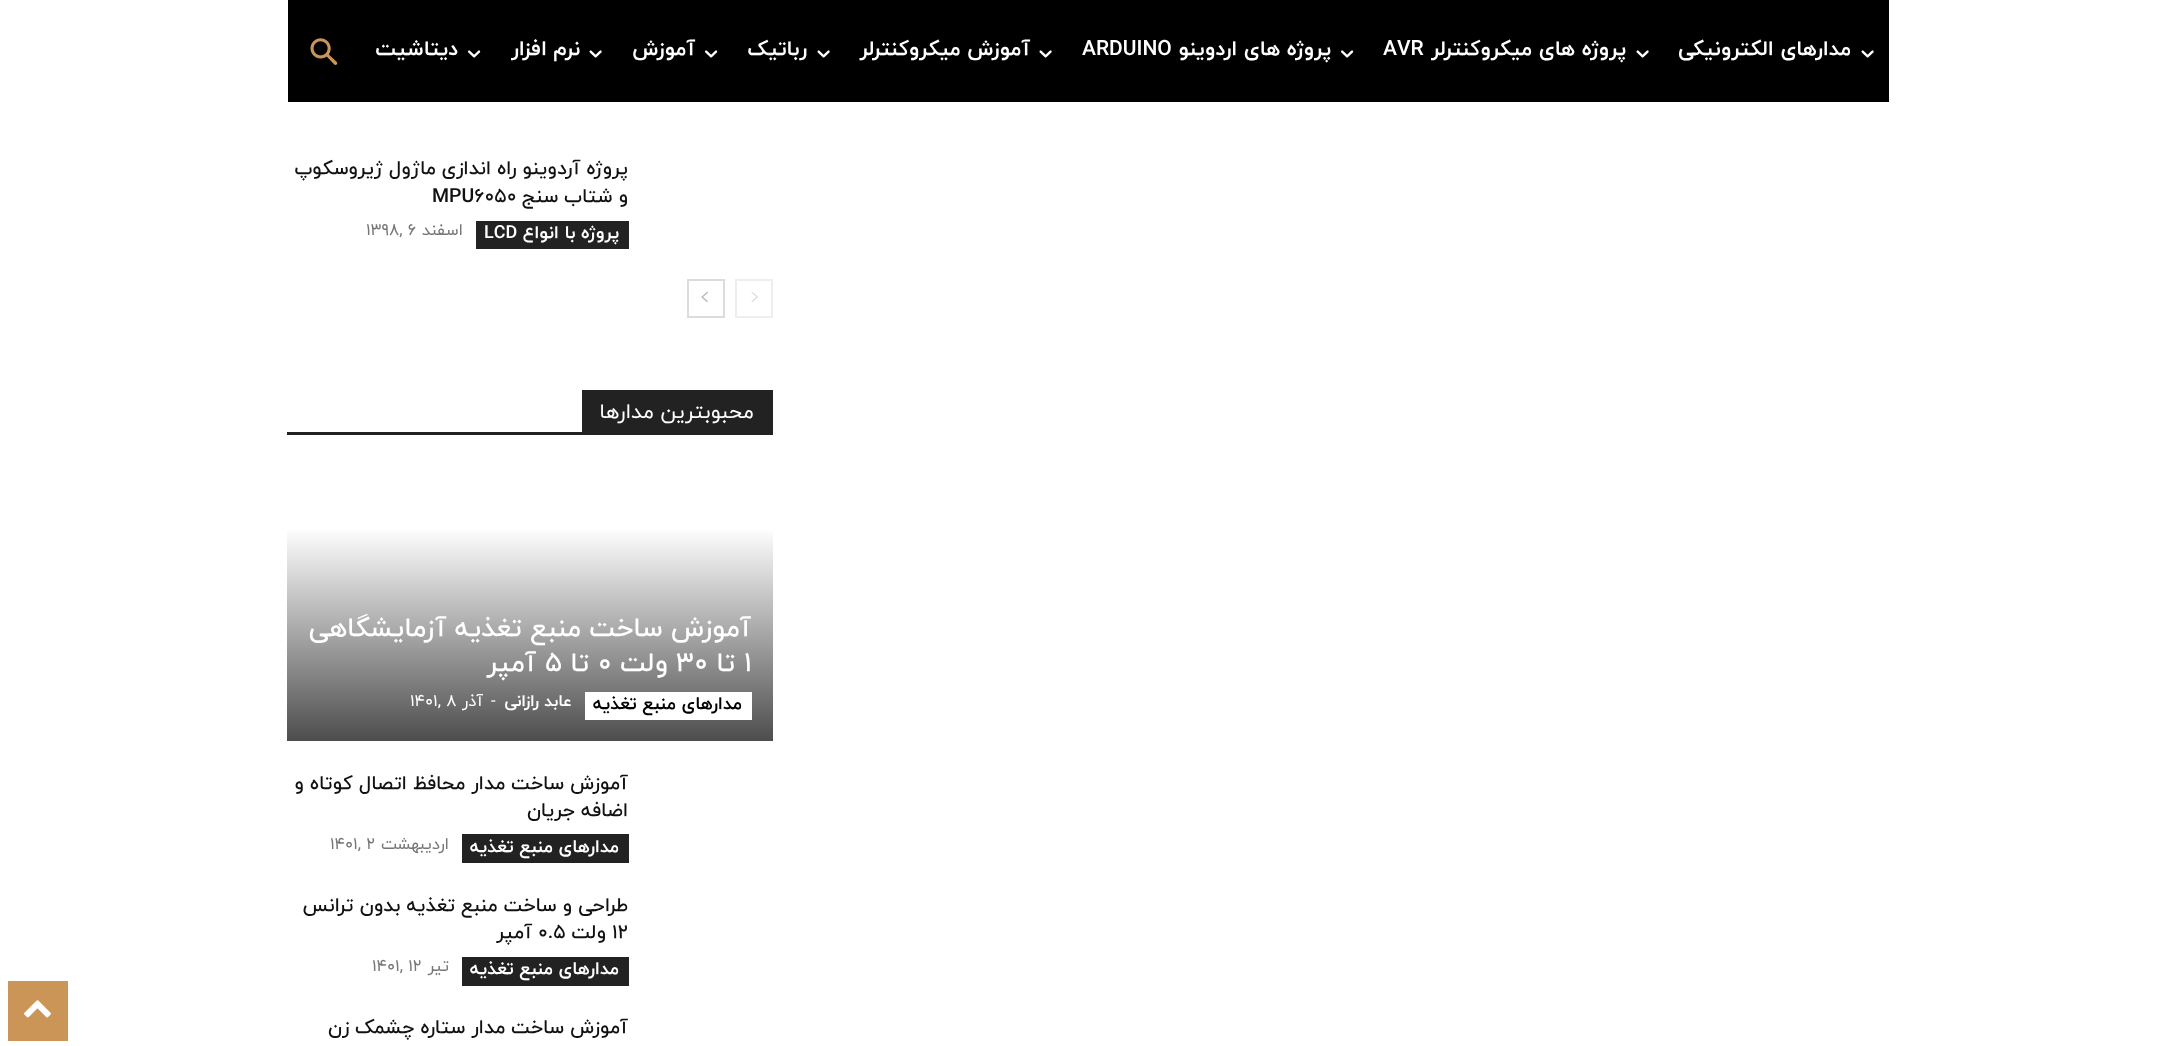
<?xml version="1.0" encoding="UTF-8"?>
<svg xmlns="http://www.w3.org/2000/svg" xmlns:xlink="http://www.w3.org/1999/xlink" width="2175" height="1046">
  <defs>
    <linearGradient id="g1" gradientUnits="userSpaceOnUse" x1="530" y1="741" x2="530" y2="474"><stop offset="0" stop-color="#4d4d4d" /><stop offset="0.8" stop-color="#ffffff" /><stop offset="1" stop-color="#ffffff" /></linearGradient>
  </defs>
  <rect width="100%" height="100%" fill="#ffffff" />
  <rect x="288" width="1601" height="102" fill="#000000" />
  <image x="1861" y="50" width="13" height="8" xlink:href="image1.png" />
  <image x="1636" y="50" width="13" height="8" xlink:href="image1.png" />
  <image x="1341" y="50" width="13" height="8" xlink:href="image2.png" />
  <image x="1039" y="50" width="13" height="8" xlink:href="image1.png" />
  <image x="817" y="50" width="13" height="8" xlink:href="image1.png" />
  <image x="705" y="50" width="13" height="8" xlink:href="image2.png" />
  <image x="589" y="50" width="13" height="8" xlink:href="image1.png" />
  <image x="468" y="50" width="13" height="8" xlink:href="image2.png" />
  <image x="310" y="38" width="28" height="27" xlink:href="image3.png" />
  <rect x="476" y="221" width="153" height="28" fill="#222222" />
  <rect x="736" y="280" width="36" height="37" fill="none" stroke="#eeeeee" stroke-width="2" />
  <image x="751" y="292" width="7" height="11" xlink:href="image4.png" />
  <rect x="688" y="280" width="36" height="37" fill="none" stroke="#dcdcdc" stroke-width="2" />
  <image x="701" y="291" width="7" height="12" xlink:href="image5.png" />
  <rect x="287" y="432" width="486" height="3" fill="#222222" />
  <rect x="582" y="390" width="191" height="42" fill="#222222" />
  <rect x="287" y="530" width="486" height="211" fill="url(#g1)" />
  <rect x="585" y="692" width="167" height="28" fill="#ffffff" />
  <rect x="462" y="834" width="167" height="29" fill="#222222" />
  <rect x="462" y="957" width="167" height="29" fill="#222222" />
  <rect x="8" y="981" width="60" height="60" fill="#cb9558" />
  <image x="24" y="1000" width="27" height="18" xlink:href="image6.png" />
  <text x="1851" y="55" style="font-family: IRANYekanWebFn; font-size: 21px; font-weight: bold; direction: rtl; fill: #ffffff">مدارهای الکترونیکی</text>
  <text x="1626" y="55" style="font-family: IRANYekanWebFn; font-size: 21px; font-weight: bold; direction: rtl; fill: #ffffff">پروژه های میکروکنترلر</text>
  <text x="1383" y="55" style="font-family: IRANYekanWebFn; font-size: 21px; font-weight: bold; fill: #ffffff">AVR</text>
  <text x="1331" y="55" style="font-family: IRANYekanWebFn; font-size: 21px; font-weight: bold; direction: rtl; fill: #ffffff">پروژه های اردوینو</text>
  <text x="1082" y="55" style="font-family: IRANYekanWebFn; font-size: 21px; font-weight: bold; fill: #ffffff">ARDUINO</text>
  <text x="1030" y="55" style="font-family: IRANYekanWebFn; font-size: 21px; font-weight: bold; direction: rtl; fill: #ffffff">آموزش میکروکنترلر</text>
  <text x="807" y="55" style="font-family: IRANYekanWebFn; font-size: 21px; font-weight: bold; direction: rtl; fill: #ffffff">رباتیک</text>
  <text x="695" y="55" style="font-family: IRANYekanWebFn; font-size: 21px; font-weight: bold; direction: rtl; fill: #ffffff">آموزش</text>
  <text x="580" y="55" style="font-family: IRANYekanWebFn; font-size: 21px; font-weight: bold; direction: rtl; fill: #ffffff">نرم افزار</text>
  <text x="458" y="55" style="font-family: IRANYekanWebFn; font-size: 21px; font-weight: bold; direction: rtl; fill: #ffffff">دیتاشیت</text>
  <text x="628" y="174" style="font-family: IRANYekanWebFn; font-size: 19.5px; font-weight: 500; direction: rtl; fill: #111111">پروژه آردوینو راه اندازی ماژول ژیروسکوپ</text>
  <text x="628" y="202" style="font-family: IRANYekanWebFn; font-size: 19.5px; font-weight: 500; direction: rtl; fill: #111111">و شتاب سنج</text>
  <text x="432" y="202" style="font-family: IRANYekanWebFn; font-size: 19.5px; font-weight: 500; fill: #111111">MPU6050</text>
  <text x="619" y="238" style="font-family: IRANYekanWebFn; font-size: 18px; font-weight: bold; direction: rtl; fill: #ffffff">پروژه با انواع</text>
  <text x="484" y="238" style="font-family: IRANYekanWebFn; font-size: 18px; font-weight: bold; fill: #ffffff">LCD</text>
  <text x="463" y="235" style="font-family: IRANYekanWebFn; font-size: 16.5px; direction: rtl; fill: #767676">اسفند</text>
  <text x="366" y="235" style="font-family: IRANYekanWebFn; font-size: 16.5px; fill: #767676">1398, 6</text>
  <text x="754" y="418" style="font-family: IRANYekanWebFn; font-size: 21px; direction: rtl; fill: #ffffff">محبوبترین مدارها</text>
  <text x="751" y="636" style="font-family: IRANYekanWebFn; font-size: 27px; font-weight: 500; direction: rtl; fill: #ffffff">آموزش ساخت منبع تغذیه آزمایشگاهی</text>
  <text x="744" y="671" style="font-family: IRANYekanWebFn; font-size: 27px; font-weight: 500; fill: #ffffff">1</text>
  <text x="735" y="671" style="font-family: IRANYekanWebFn; font-size: 27px; font-weight: 500; direction: rtl; fill: #ffffff">تا</text>
  <text x="676" y="671" style="font-family: IRANYekanWebFn; font-size: 27px; font-weight: 500; fill: #ffffff">30</text>
  <text x="668" y="671" style="font-family: IRANYekanWebFn; font-size: 27px; font-weight: 500; direction: rtl; fill: #ffffff">ولت</text>
  <text x="598" y="671" style="font-family: IRANYekanWebFn; font-size: 27px; font-weight: 500; fill: #ffffff">0</text>
  <text x="589" y="671" style="font-family: IRANYekanWebFn; font-size: 27px; font-weight: 500; direction: rtl; fill: #ffffff">تا</text>
  <text x="545" y="671" style="font-family: IRANYekanWebFn; font-size: 27px; font-weight: 500; fill: #ffffff">5</text>
  <text x="536" y="671" style="font-family: IRANYekanWebFn; font-size: 27px; font-weight: 500; direction: rtl; fill: #ffffff">آمپر</text>
  <text x="742" y="709" style="font-family: IRANYekanWebFn; font-size: 18px; font-weight: bold; direction: rtl; fill: #000000">مدارهای منبع تغذیه</text>
  <text x="572" y="706" style="font-family: IRANYekanWebFn; font-size: 16.5px; font-weight: bold; direction: rtl; fill: #ffffff">عابد رازانی</text>
  <text x="491" y="706" style="font-family: IRANYekanWebFn; font-size: 16.5px; fill: #ffffff">-</text>
  <text x="483" y="706" style="font-family: IRANYekanWebFn; font-size: 16.5px; direction: rtl; fill: #ffffff">آذر</text>
  <text x="410" y="706" style="font-family: IRANYekanWebFn; font-size: 16.5px; fill: #ffffff">1401, 8</text>
  <text x="628" y="789" style="font-family: IRANYekanWebFn; font-size: 19.5px; font-weight: 500; direction: rtl; fill: #111111">آموزش ساخت مدار محافظ اتصال کوتاه و</text>
  <text x="628" y="816" style="font-family: IRANYekanWebFn; font-size: 19.5px; font-weight: 500; direction: rtl; fill: #111111">اضافه جریان</text>
  <text x="619" y="852" style="font-family: IRANYekanWebFn; font-size: 18px; font-weight: bold; direction: rtl; fill: #ffffff">مدارهای منبع تغذیه</text>
  <text x="449" y="849" style="font-family: IRANYekanWebFn; font-size: 16.5px; direction: rtl; fill: #767676">اردیبهشت</text>
  <text x="330" y="849" style="font-family: IRANYekanWebFn; font-size: 16.5px; fill: #767676">1401, 2</text>
  <text x="628" y="911" style="font-family: IRANYekanWebFn; font-size: 19.5px; font-weight: 500; direction: rtl; fill: #111111">طراحی و ساخت منبع تغذیه بدون ترانس</text>
  <text x="612" y="938" style="font-family: IRANYekanWebFn; font-size: 19.5px; font-weight: 500; fill: #111111">12</text>
  <text x="606" y="938" style="font-family: IRANYekanWebFn; font-size: 19.5px; font-weight: 500; direction: rtl; fill: #111111">ولت</text>
  <text x="538" y="938" style="font-family: IRANYekanWebFn; font-size: 19.5px; font-weight: 500; fill: #111111">0.5</text>
  <text x="532" y="938" style="font-family: IRANYekanWebFn; font-size: 19.5px; font-weight: 500; direction: rtl; fill: #111111">آمپر</text>
  <text x="619" y="974" style="font-family: IRANYekanWebFn; font-size: 18px; font-weight: bold; direction: rtl; fill: #ffffff">مدارهای منبع تغذیه</text>
  <text x="449" y="971" style="font-family: IRANYekanWebFn; font-size: 16.5px; direction: rtl; fill: #767676">تیر</text>
  <text x="372" y="971" style="font-family: IRANYekanWebFn; font-size: 16.5px; fill: #767676">1401, 12</text>
  <text x="628" y="1033" style="font-family: IRANYekanWebFn; font-size: 19.5px; font-weight: 500; direction: rtl; fill: #111111">آموزش ساخت مدار ستاره چشمک زن</text>
</svg>
